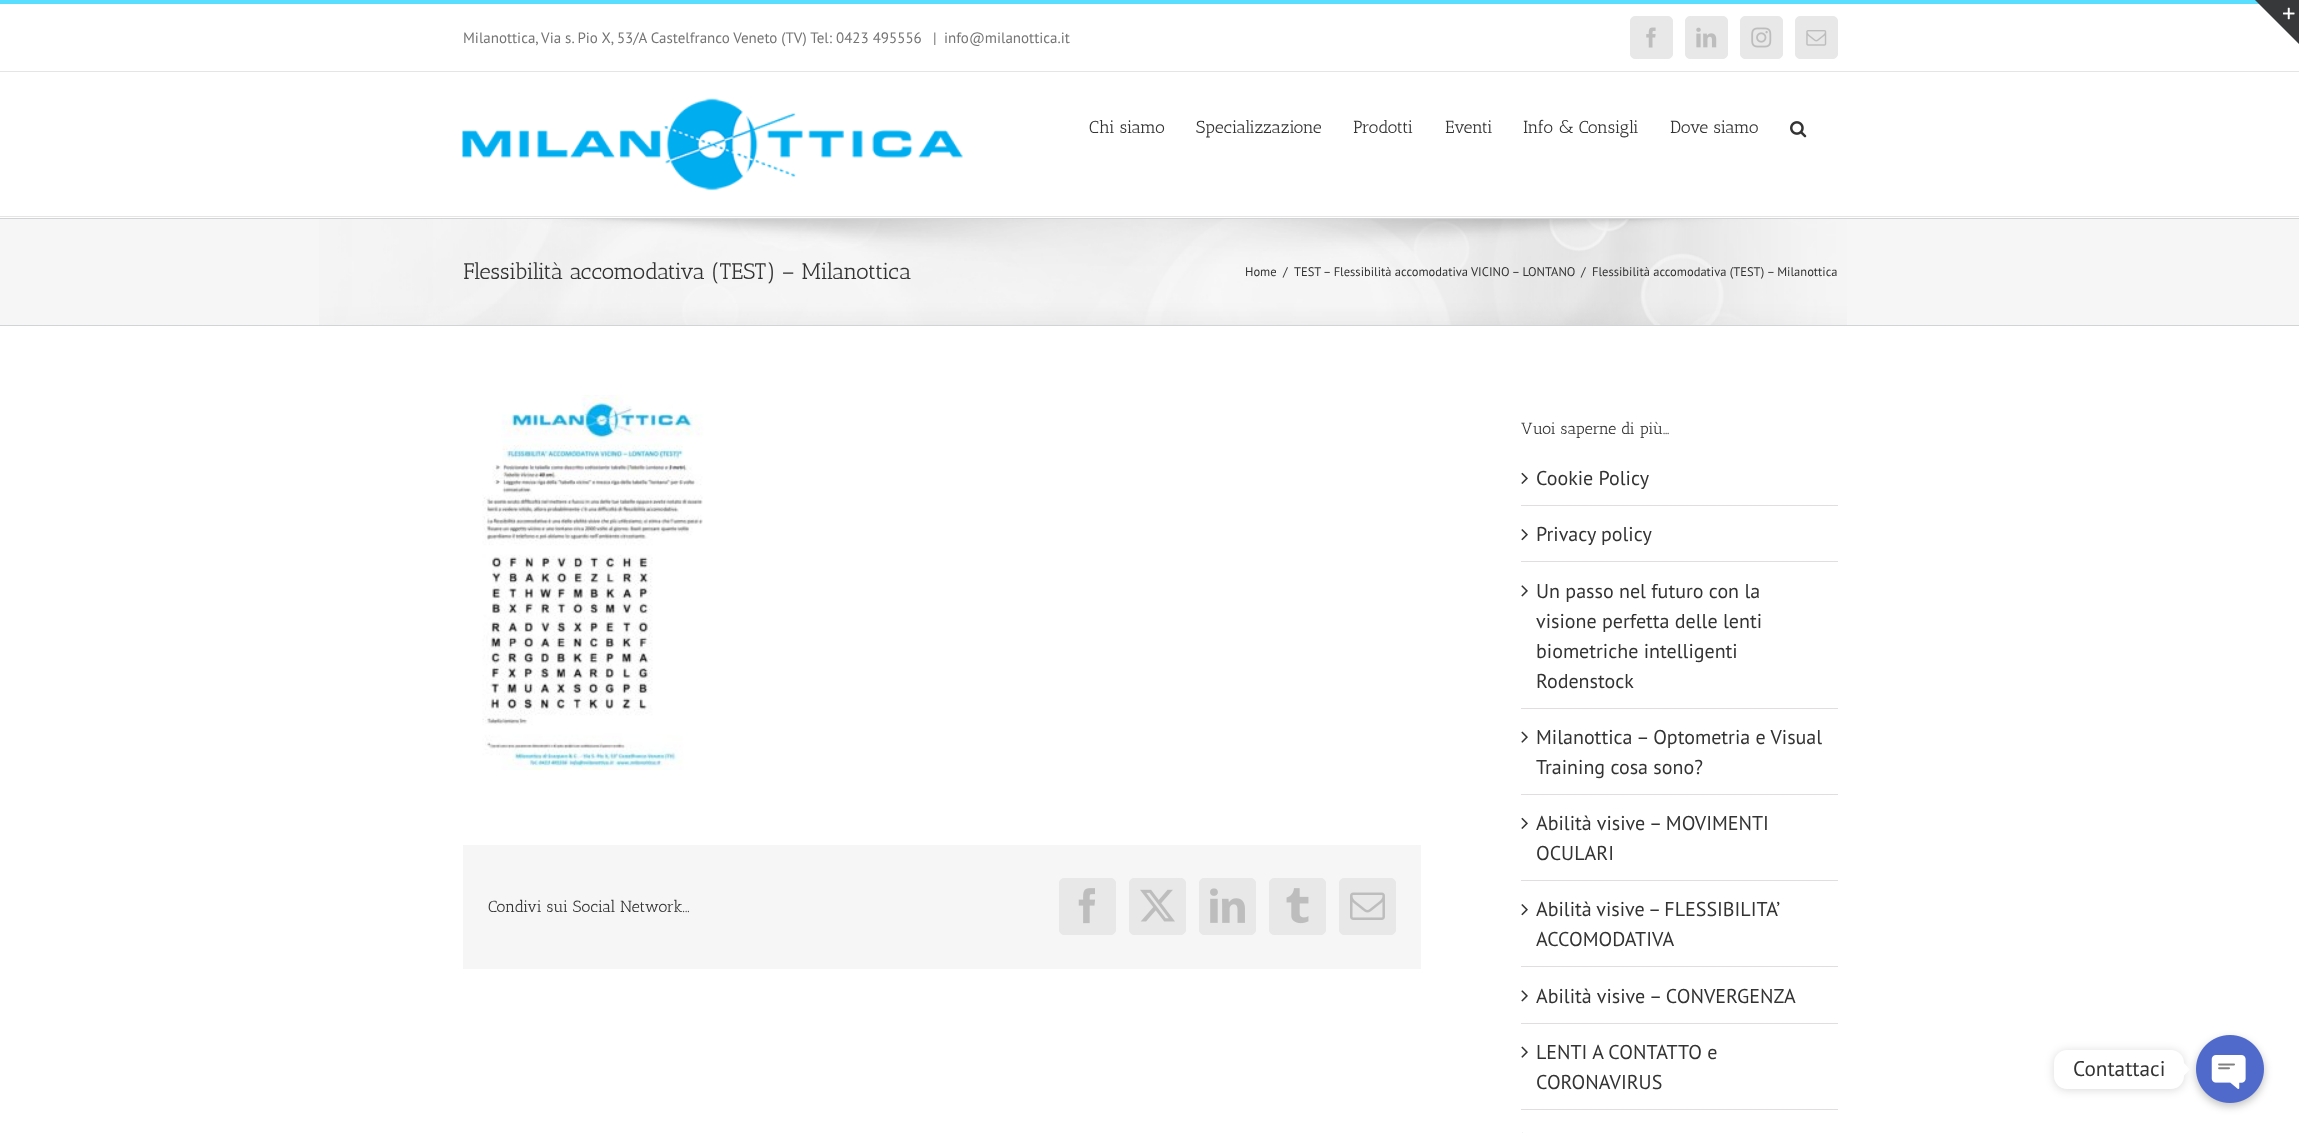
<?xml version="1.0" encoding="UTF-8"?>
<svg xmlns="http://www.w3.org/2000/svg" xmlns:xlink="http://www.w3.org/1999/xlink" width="2299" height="1133">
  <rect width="100%" height="100%" fill="#ffffff" />
  <rect width="2259" height="4" fill="#59deff" />
  <path d="M 2255 0 h 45 v 45 z" fill="#363839" />
  <image x="2283" y="7" width="12" height="13" xlink:href="image1.png" />
  <rect y="71" width="2299" height="1" fill="#e5e5e5" />
  <rect x="1630.5" y="16.5" width="42" height="42" rx="4.5" fill="#e8e8e8" stroke="#e8e8e8" />
  <image x="1646" y="27" width="10" height="21" xlink:href="image2.png" />
  <rect x="1685.5" y="16.5" width="42" height="42" rx="4.5" fill="#e8e8e8" stroke="#e8e8e8" />
  <image x="1696" y="27" width="21" height="21" xlink:href="image3.png" />
  <rect x="1740.5" y="16.5" width="42" height="42" rx="4.5" fill="#e8e8e8" stroke="#e8e8e8" />
  <image x="1751" y="27" width="21" height="21" xlink:href="image4.png" />
  <rect x="1795.5" y="16.5" width="42" height="42" rx="4.5" fill="#e8e8e8" stroke="#e8e8e8" />
  <image x="1806" y="30" width="21" height="16" xlink:href="image5.png" />
  <rect y="216" width="2299" height="1" fill="#e5e5e5" />
  <image x="462" y="98" width="501" height="93" xlink:href="image6.png" />
  <image x="1790" y="121" width="17" height="17" xlink:href="image7.png" />
  <rect y="219" width="2299" height="106" fill="#f6f6f6" />
  <image x="319" y="219" width="1528" height="106" xlink:href="image8.png" />
  <rect y="218" width="2299" height="1" fill="#d2d3d4" />
  <rect y="325" width="2299" height="1" fill="#d2d3d4" />
  <image x="482" y="395" width="221" height="375" xlink:href="image9.png" />
  <rect x="463" y="845" width="958" height="124" fill="#f6f6f6" />
  <rect x="1059.5" y="878.5" width="56" height="56" rx="4.5" fill="#e8e8e8" stroke="#e8e8e8" />
  <image x="1078" y="888" width="17" height="36" xlink:href="image10.png" />
  <rect x="1129.5" y="878.5" width="56" height="56" rx="4.5" fill="#e8e8e8" stroke="#e8e8e8" />
  <image x="1140" y="889" width="35" height="33" xlink:href="image11.png" />
  <rect x="1199.5" y="878.5" width="56" height="56" rx="4.5" fill="#e8e8e8" stroke="#e8e8e8" />
  <image x="1210" y="888" width="35" height="35" xlink:href="image12.png" />
  <rect x="1269.5" y="878.5" width="56" height="56" rx="4.5" fill="#e8e8e8" stroke="#e8e8e8" />
  <image x="1286" y="888" width="23" height="36" xlink:href="image13.png" />
  <rect x="1339.5" y="878.5" width="56" height="56" rx="4.5" fill="#e8e8e8" stroke="#e8e8e8" />
  <image x="1350" y="892" width="35" height="28" xlink:href="image14.png" />
  <rect x="1521" y="505" width="317" height="1" fill="#e0dede" />
  <image x="1521" y="472" width="7" height="12" xlink:href="image15.png" />
  <rect x="1521" y="561" width="317" height="1" fill="#e0dede" />
  <image x="1521" y="529" width="7" height="12" xlink:href="image16.png" />
  <rect x="1521" y="708" width="317" height="1" fill="#e0dede" />
  <image x="1521" y="585" width="7" height="12" xlink:href="image17.png" />
  <rect x="1521" y="794" width="317" height="1" fill="#e0dede" />
  <image x="1521" y="731" width="7" height="12" xlink:href="image18.png" />
  <rect x="1521" y="880" width="317" height="1" fill="#e0dede" />
  <image x="1521" y="817" width="7" height="12" xlink:href="image15.png" />
  <rect x="1521" y="966" width="317" height="1" fill="#e0dede" />
  <image x="1521" y="904" width="7" height="12" xlink:href="image16.png" />
  <rect x="1521" y="1023" width="317" height="1" fill="#e0dede" />
  <image x="1521" y="990" width="7" height="12" xlink:href="image17.png" />
  <rect x="1521" y="1109" width="317" height="1" fill="#e0dede" />
  <image x="1521" y="1046" width="7" height="12" xlink:href="image18.png" />
  <rect x="1522" y="1132" width="1" height="1" fill="#f3f3f3" />
  <rect x="2054" y="1051" width="130" height="39" rx="13" fill="#000000" fill-opacity="0.15" filter="blur(5px)" />
  <rect x="2054" y="1050" width="130" height="39" rx="13" fill="#ffffff" />
  <path d="M 2184 1075.5 v -12.5 l 6 6.5 z" fill="#ffffff" />
  <rect x="2196" y="1039" width="68" height="67" rx="33.5" fill="#000000" fill-opacity="0.25" filter="blur(4px)" />
  <image x="2196" y="1035" width="68" height="68" xlink:href="image19.png" />
  <text x="463" y="43" style="font-family: PT Sans; font-size: 15px; fill: #747474">Milanottica, Via s. Pio X, 53/A Castelfranco Veneto (TV) Tel: 0423 495556</text>
  <text x="933" y="43" style="font-family: PT Sans; font-size: 15px; fill: #747474">|</text>
  <text x="944" y="43" style="font-family: PT Sans; font-size: 15px; fill: #747474">info@milanottica.it</text>
  <text x="1089" y="133" style="font-family: Antic Slab; font-size: 17.5px; fill: #333333">Chi siamo</text>
  <text x="1196" y="133" style="font-family: Antic Slab; font-size: 17.5px; fill: #333333">Specializzazione</text>
  <text x="1353" y="133" style="font-family: Antic Slab; font-size: 17.5px; fill: #333333">Prodotti</text>
  <text x="1445" y="133" style="font-family: Antic Slab; font-size: 17.5px; fill: #333333">Eventi</text>
  <text x="1523" y="133" style="font-family: Antic Slab; font-size: 17.5px; fill: #333333">Info &amp; Consigli</text>
  <text x="1670" y="133" style="font-family: Antic Slab; font-size: 17.5px; fill: #333333">Dove siamo</text>
  <text x="463" y="279" style="font-family: Antic Slab; font-size: 22.5px; fill: #333333">Flessibilità accomodativa (TEST) – Milanottica</text>
  <text x="1245" y="276" style="font-family: PT Sans; font-size: 12.5px; fill: #333333">Home</text>
  <text x="1283" y="276" style="font-family: PT Sans; font-size: 12.5px; fill: #333333">/</text>
  <text x="1294" y="276" style="font-family: PT Sans; font-size: 12.5px; fill: #333333">TEST – Flessibilità accomodativa VICINO – LONTANO</text>
  <text x="1581" y="276" style="font-family: PT Sans; font-size: 12.5px; fill: #333333">/</text>
  <text x="1592" y="276" style="font-family: PT Sans; font-size: 12.5px; fill: #333333">Flessibilità accomodativa (TEST) – Milanottica</text>
  <text x="488" y="912" style="font-family: Antic Slab; font-size: 16.25px; fill: #333333">Condivi sui Social Network...</text>
  <text x="1521" y="434" style="font-family: Antic Slab; font-size: 16.25px; fill: #333333">Vuoi saperne di più…</text>
  <text x="1536" y="485" style="font-family: PT Sans; font-size: 20px; fill: #333333">Cookie Policy</text>
  <text x="1536" y="541" style="font-family: PT Sans; font-size: 20px; fill: #333333">Privacy policy</text>
  <text x="1536" y="598" style="font-family: PT Sans; font-size: 20px; fill: #333333">Un passo nel futuro con la</text>
  <text x="1536" y="628" style="font-family: PT Sans; font-size: 20px; fill: #333333">visione perfetta delle lenti</text>
  <text x="1536" y="658" style="font-family: PT Sans; font-size: 20px; fill: #333333">biometriche intelligenti</text>
  <text x="1536" y="688" style="font-family: PT Sans; font-size: 20px; fill: #333333">Rodenstock</text>
  <text x="1536" y="744" style="font-family: PT Sans; font-size: 20px; fill: #333333">Milanottica – Optometria e Visual</text>
  <text x="1536" y="774" style="font-family: PT Sans; font-size: 20px; fill: #333333">Training cosa sono?</text>
  <text x="1536" y="830" style="font-family: PT Sans; font-size: 20px; fill: #333333">Abilità visive – MOVIMENTI</text>
  <text x="1536" y="860" style="font-family: PT Sans; font-size: 20px; fill: #333333">OCULARI</text>
  <text x="1536" y="916" word-spacing="-0.5" style="font-family: PT Sans; font-size: 20px; fill: #333333">Abilità visive – FLESSIBILITA’</text>
  <text x="1536" y="946" style="font-family: PT Sans; font-size: 20px; fill: #333333">ACCOMODATIVA</text>
  <text x="1536" y="1003" style="font-family: PT Sans; font-size: 20px; fill: #333333">Abilità visive – CONVERGENZA</text>
  <text x="1536" y="1059" style="font-family: PT Sans; font-size: 20px; fill: #333333">LENTI A CONTATTO e</text>
  <text x="1536" y="1089" style="font-family: PT Sans; font-size: 20px; fill: #333333">CORONAVIRUS</text>
  <text x="2073" y="1076" style="font-family: PT Sans; font-size: 21.25px; fill: #333333">Contattaci</text>
</svg>
